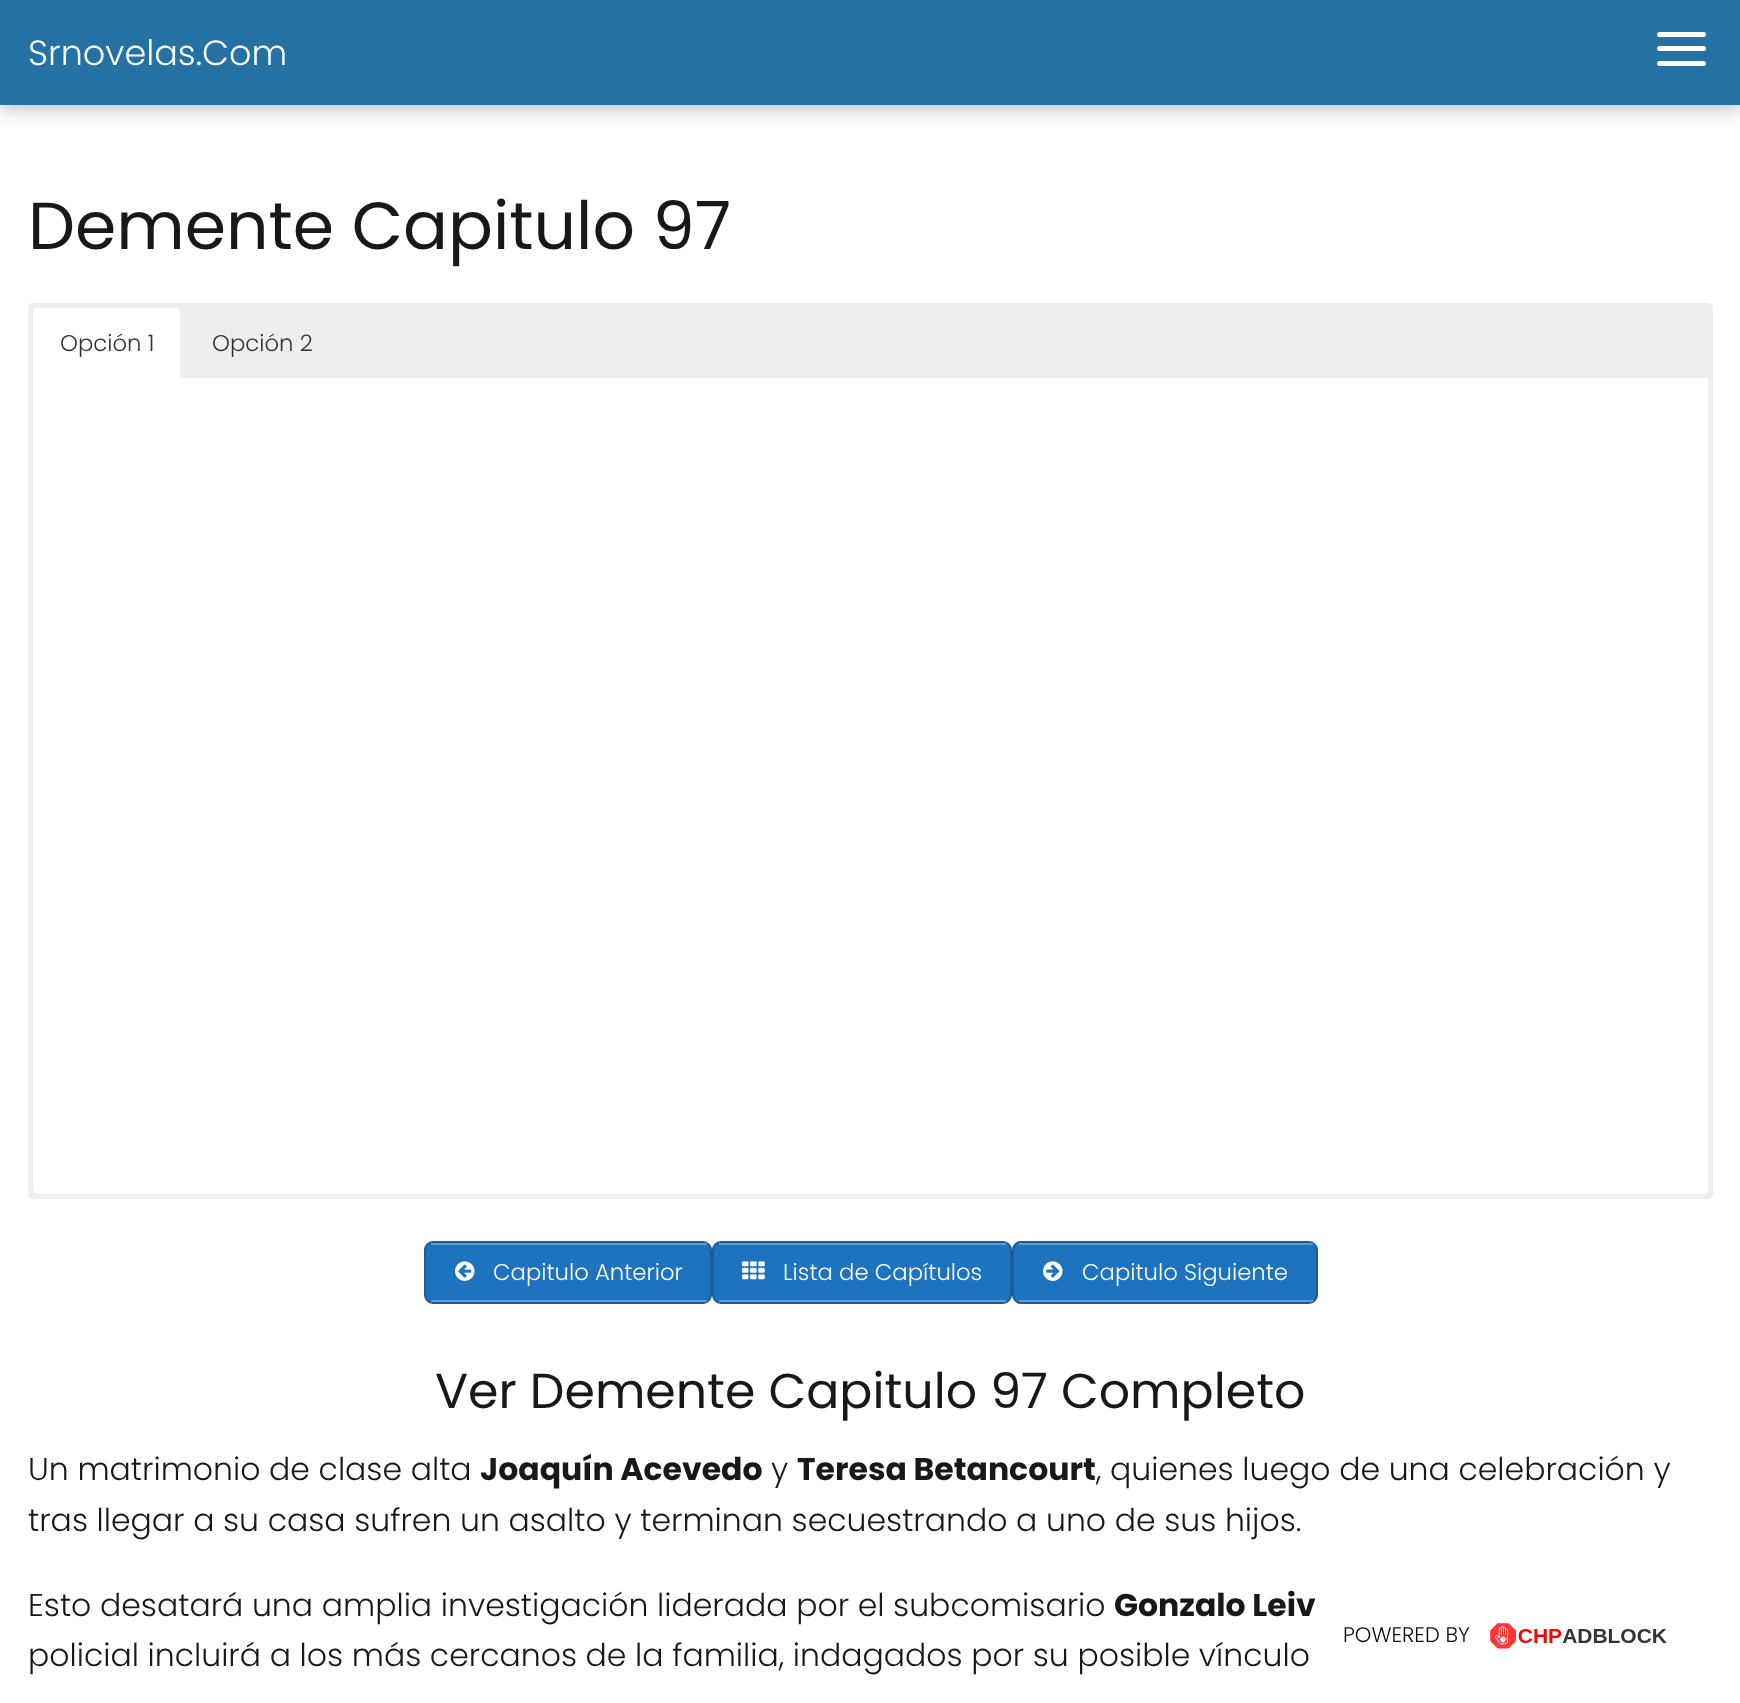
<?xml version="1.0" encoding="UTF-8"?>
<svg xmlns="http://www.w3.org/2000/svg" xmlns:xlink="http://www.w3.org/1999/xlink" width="1740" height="1703">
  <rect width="100%" height="100%" fill="#ffffff" />
  <rect y="2" width="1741" height="105" fill="#000000" fill-opacity="0.3" filter="blur(10.5px)" />
  <rect width="1740" height="105" fill="#2471a3" />
  <rect x="1657" y="32" width="49" height="5" rx="2.5" fill="#ffffff" />
  <rect x="1657" y="46" width="49" height="5" rx="2.5" fill="#ffffff" />
  <rect x="1657" y="61" width="49" height="5" rx="2.5" fill="#ffffff" />
  <rect x="28" y="303" width="1685" height="896" rx="5" fill="#eeeeee" />
  <path d="M 38 308 h 137 c 3 0 5 2 5 5 v 65 h -147 v -65 c 0 -3 2 -5 5 -5 z" fill="#ffffff" />
  <path d="M 33 378 h 1675 v 811 c 0 3 -2 5 -5 5 h -1665 c -3 0 -5 -2 -5 -5 z" fill="#ffffff" />
  <rect x="425" y="1242" width="286" height="61" rx="8" fill="#1e73be" stroke="#185c98" stroke-width="2" />
  <rect x="431" y="1243" width="276" height="2" fill="#629dd2" />
  <rect x="431" y="1300" width="276" height="2" fill="#629dd2" />
  <image x="455" y="1261" width="20" height="20" xlink:href="image1.png" />
  <rect x="713" y="1242" width="298" height="61" rx="8" fill="#1e73be" stroke="#185c98" stroke-width="2" />
  <rect x="719" y="1243" width="287" height="2" fill="#629dd2" />
  <rect x="719" y="1300" width="287" height="2" fill="#629dd2" />
  <image x="742" y="1261" width="23" height="19" xlink:href="image2.png" />
  <rect x="1013" y="1242" width="304" height="61" rx="8" fill="#1e73be" stroke="#185c98" stroke-width="2" />
  <rect x="1019" y="1243" width="294" height="2" fill="#629dd2" />
  <rect x="1019" y="1300" width="294" height="2" fill="#629dd2" />
  <image x="1043" y="1261" width="20" height="20" xlink:href="image3.png" />
  <image x="1490" y="1623" width="177" height="26" xlink:href="image4.png" />
  <text x="28" y="65" style="font-family: Poppins; font-size: 35px; font-weight: 300; fill: #ffffff">Srnovelas.Com</text>
  <text x="28" y="249" style="font-family: Poppins; font-size: 66.5px; fill: #181818">Demente Capitulo 97</text>
  <text x="60" y="351" style="font-family: Poppins; font-size: 22.75px; font-weight: 300; fill: #333333">Opción 1</text>
  <text x="212" y="351" style="font-family: Poppins; font-size: 22.75px; font-weight: 300; fill: #333333">Opción 2</text>
  <text x="493" y="1280" style="font-family: Poppins; font-size: 22.75px; font-weight: 300; fill: #ffffff">Capitulo Anterior</text>
  <text x="783" y="1280" style="font-family: Poppins; font-size: 22.75px; font-weight: 300; fill: #ffffff">Lista de Capítulos</text>
  <text x="1082" y="1280" style="font-family: Poppins; font-size: 22.75px; font-weight: 300; fill: #ffffff">Capitulo Siguiente</text>
  <text x="435" y="1408" style="font-family: Poppins; font-size: 49px; fill: #181818">Ver Demente Capitulo 97 Completo</text>
  <text x="28" y="1480" style="font-family: Poppins; font-size: 31.5px; font-weight: 300; fill: #181818">Un matrimonio de clase alta</text>
  <text x="480" y="1480" style="font-family: Poppins; font-size: 31.5px; font-weight: bold; fill: #181818">Joaquín Acevedo</text>
  <text x="771" y="1480" style="font-family: Poppins; font-size: 31.5px; font-weight: 300; fill: #181818">y</text>
  <text x="797" y="1480" style="font-family: Poppins; font-size: 31.5px; font-weight: bold; fill: #181818">Teresa Betancourt</text>
  <text x="1096" y="1480" style="font-family: Poppins; font-size: 31.5px; font-weight: 300; fill: #181818">, quienes luego de una celebración y</text>
  <text x="28" y="1531" style="font-family: Poppins; font-size: 31.5px; font-weight: 300; fill: #181818">tras llegar a su casa sufren un asalto y terminan secuestrando a uno de sus hijos.</text>
  <text x="28" y="1616" style="font-family: Poppins; font-size: 31.5px; font-weight: 300; fill: #181818">Esto desatará una amplia investigación liderada por el subcomisario</text>
  <text x="1114" y="1616" style="font-family: Poppins; font-size: 31.5px; font-weight: bold; fill: #181818">Gonzalo Leiv</text>
  <text x="28" y="1666" style="font-family: Poppins; font-size: 31.5px; font-weight: 300; fill: #181818">policial incluirá a los más cercanos de la familia, indagados por su posible vínculo</text>
  <text x="1343" y="1642" style="font-family: Poppins; font-size: 21px; font-weight: 300; fill: #090d16">POWERED BY</text>
</svg>
